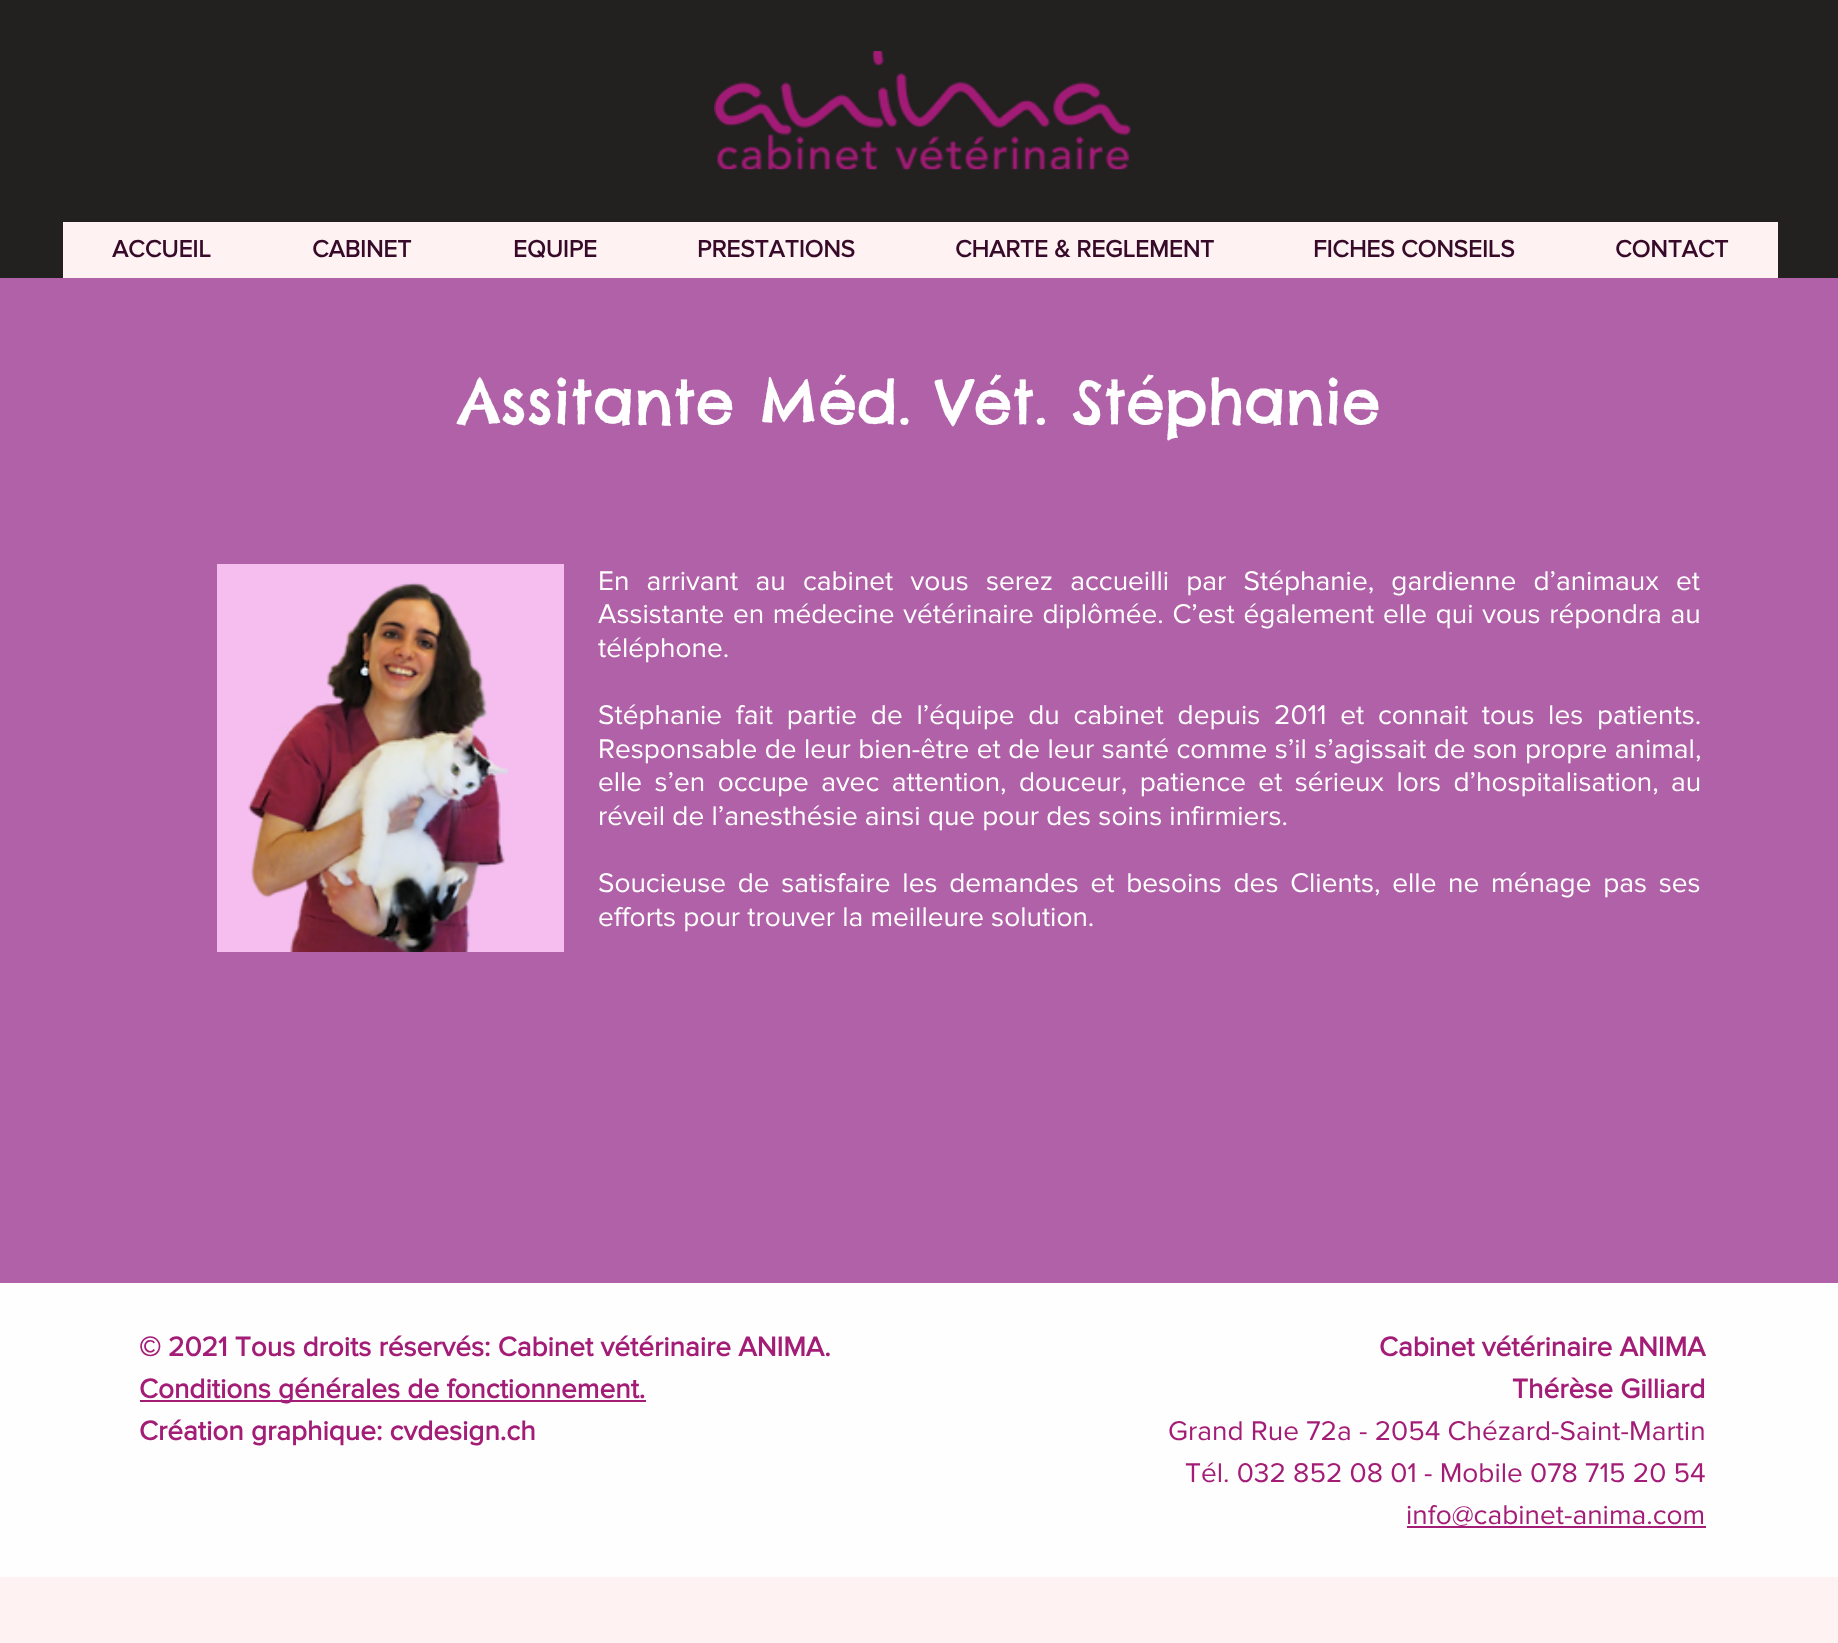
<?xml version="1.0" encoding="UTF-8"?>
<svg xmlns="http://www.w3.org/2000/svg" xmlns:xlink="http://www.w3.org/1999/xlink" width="1838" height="1643">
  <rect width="100%" height="100%" fill="#fff2f2" />
  <rect width="1838" height="278" fill="#222120" />
  <image x="714" y="51" width="417" height="119" xlink:href="image1.png" />
  <rect x="63" y="222" width="1715" height="56" fill="#fff2f2" />
  <rect y="278" width="1838" height="1005" fill="#b061a8" />
  <rect x="217" y="564" width="347" height="388" fill="#f5beef" />
  <image x="248" y="582" width="261" height="370" xlink:href="image2.png" />
  <rect y="1283" width="1838" height="294" fill="#fffefe" />
  <rect x="140" y="1400" width="506" height="2" fill="#a31d77" />
  <rect x="1407" y="1526" width="299" height="2" fill="#a31d77" />
  <text x="112" y="257" style="font-family: 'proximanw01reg'; font-size: 24.5px; font-weight: bold; fill: #360a28">ACCUEIL</text>
  <text x="312" y="257" style="font-family: 'proximanw01reg'; font-size: 24.5px; font-weight: bold; fill: #360a28">CABINET</text>
  <text x="513" y="257" style="font-family: 'proximanw01reg'; font-size: 24.5px; font-weight: bold; fill: #360a28">EQUIPE</text>
  <text x="697" y="257" style="font-family: 'proximanw01reg'; font-size: 24.5px; font-weight: bold; fill: #360a28">PRESTATIONS</text>
  <text x="955" y="257" style="font-family: 'proximanw01reg'; font-size: 24.5px; font-weight: bold; fill: #360a28">CHARTE &amp; REGLEMENT</text>
  <text x="1313" y="257" style="font-family: 'proximanw01reg'; font-size: 24.5px; font-weight: bold; fill: #360a28">FICHES CONSEILS</text>
  <text x="1615" y="257" style="font-family: 'proximanw01reg'; font-size: 24.5px; font-weight: bold; fill: #360a28">CONTACT</text>
  <text x="458" y="424" style="font-family: Chelsea Market; font-size: 61.25px; fill: #ffffff">Assitante Méd. Vét. Stéphanie</text>
  <text x="598" y="590" word-spacing="10" style="font-family: 'proximanw01reg'; font-size: 28px; fill: #ffffff">En arrivant au cabinet vous serez accueilli par Stéphanie, gardienne d’animaux et</text>
  <text x="598" y="623" word-spacing="1.5" style="font-family: 'proximanw01reg'; font-size: 28px; fill: #ffffff">Assistante en médecine vétérinaire diplômée. C’est également elle qui vous répondra au</text>
  <text x="598" y="657" style="font-family: 'proximanw01reg'; font-size: 28px; fill: #ffffff">téléphone.</text>
  <text x="598" y="724" word-spacing="6.5" style="font-family: 'proximanw01reg'; font-size: 28px; fill: #ffffff">Stéphanie fait partie de l’équipe du cabinet depuis 2011 et connait tous les patients.</text>
  <text x="598" y="758" word-spacing="0.25" style="font-family: 'proximanw01reg'; font-size: 28px; fill: #ffffff">Responsable de leur bien-être et de leur santé comme s’il s’agissait de son propre animal,</text>
  <text x="598" y="791" word-spacing="5.25" style="font-family: 'proximanw01reg'; font-size: 28px; fill: #ffffff">elle s’en occupe avec attention, douceur, patience et sérieux lors d’hospitalisation, au</text>
  <text x="598" y="825" style="font-family: 'proximanw01reg'; font-size: 28px; fill: #ffffff">réveil de l’anesthésie ainsi que pour des soins infirmiers.</text>
  <text x="598" y="892" word-spacing="4.5" style="font-family: 'proximanw01reg'; font-size: 28px; fill: #ffffff">Soucieuse de satisfaire les demandes et besoins des Clients, elle ne ménage pas ses</text>
  <text x="598" y="926" style="font-family: 'proximanw01reg'; font-size: 28px; fill: #ffffff">efforts pour trouver la meilleure solution.</text>
  <text x="139" y="1356" style="font-family: 'proximanw01reg'; font-size: 28px; font-weight: bold; fill: #a31d77">© 2021 Tous droits réservés: Cabinet vétérinaire ANIMA.</text>
  <text x="139" y="1398" style="font-family: 'proximanw01reg'; font-size: 28px; font-weight: bold; fill: #a31d77">Conditions générales de fonctionnement.</text>
  <text x="139" y="1440" style="font-family: 'proximanw01reg'; font-size: 28px; font-weight: bold; fill: #a31d77">Création graphique: cvdesign.ch</text>
  <text x="1379" y="1356" style="font-family: 'proximanw01reg'; font-size: 28px; font-weight: bold; fill: #a31d77">Cabinet vétérinaire ANIMA</text>
  <text x="1512" y="1398" style="font-family: 'proximanw01reg'; font-size: 28px; font-weight: bold; fill: #a31d77">Thérèse Gilliard</text>
  <text x="1168" y="1440" style="font-family: 'proximanw01reg'; font-size: 28px; fill: #a31d77">Grand Rue 72a - 2054 Chézard-Saint-Martin</text>
  <text x="1185" y="1482" style="font-family: 'proximanw01reg'; font-size: 28px; fill: #a31d77">Tél. 032 852 08 01 - Mobile 078 715 20 54</text>
  <text x="1406" y="1524" style="font-family: 'proximanw01reg'; font-size: 28px; fill: #a31d77">info@cabinet-anima.com</text>
</svg>
